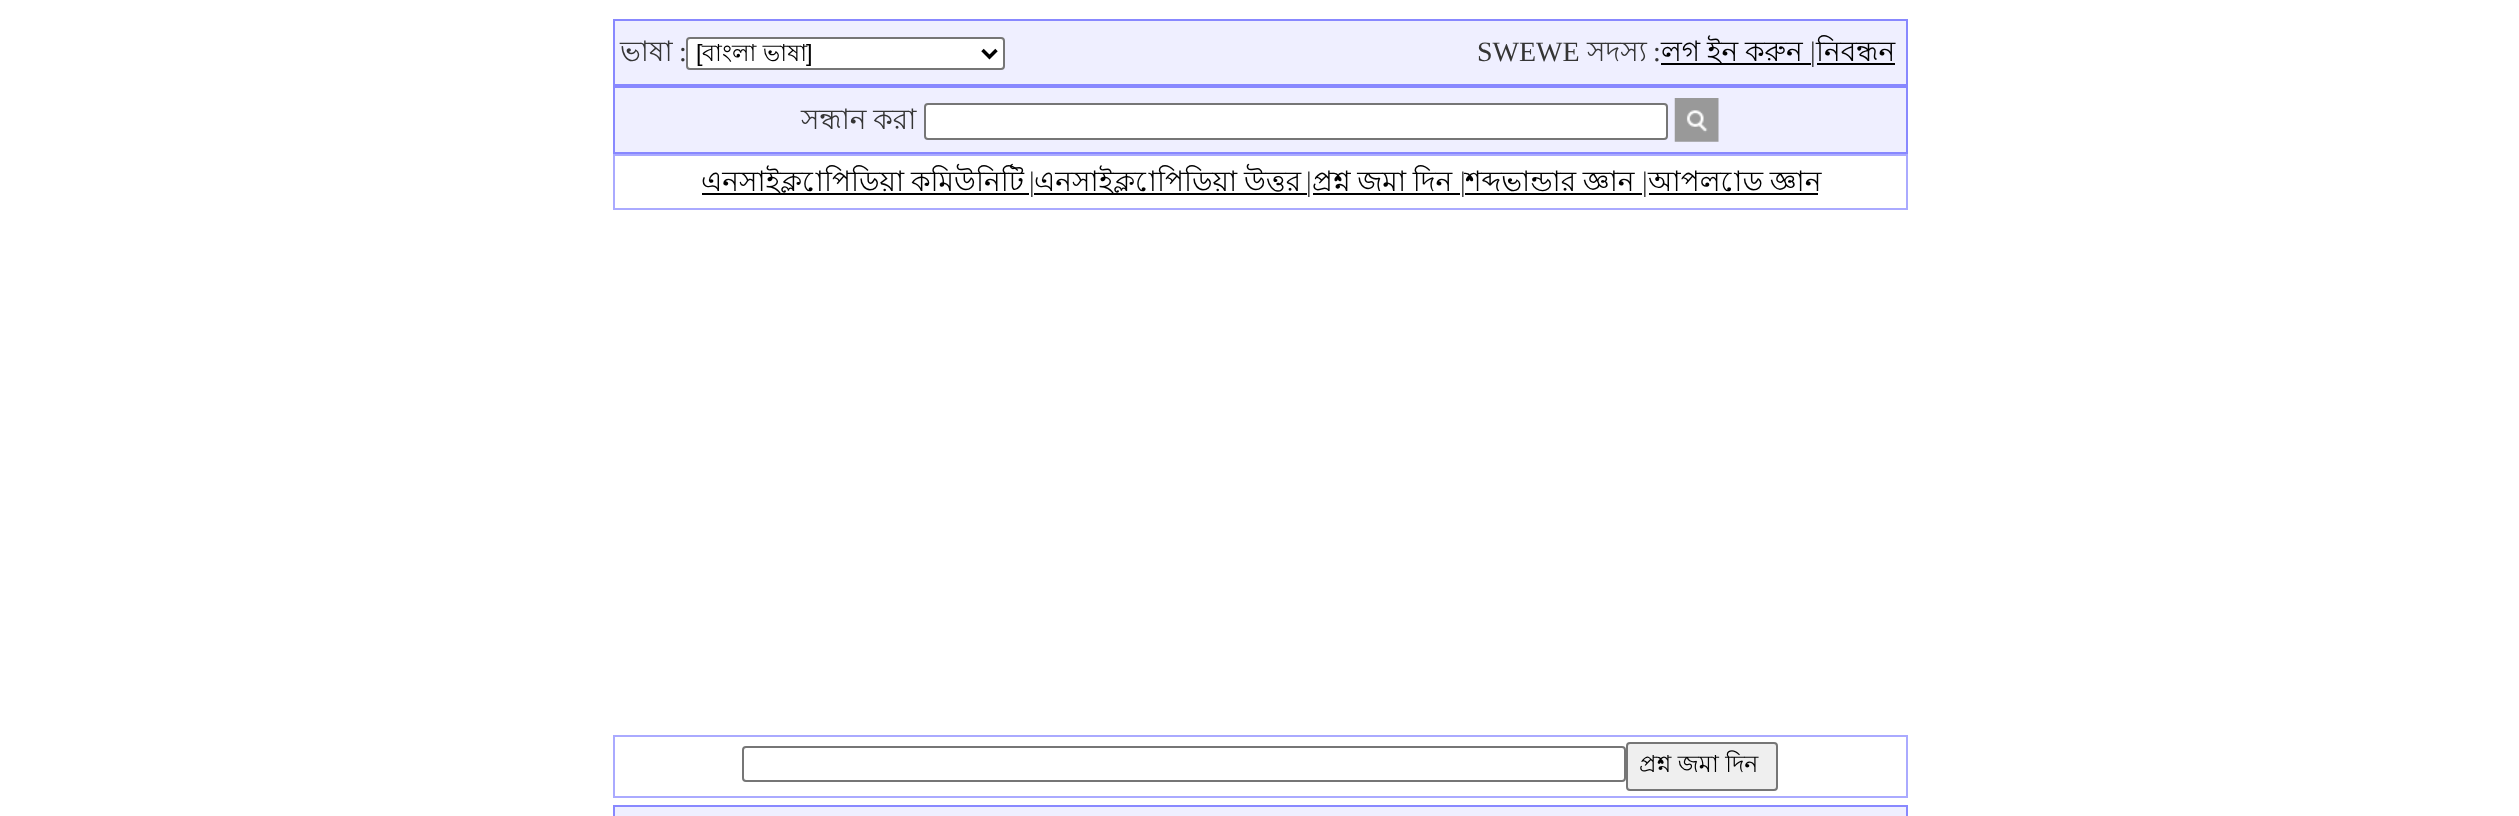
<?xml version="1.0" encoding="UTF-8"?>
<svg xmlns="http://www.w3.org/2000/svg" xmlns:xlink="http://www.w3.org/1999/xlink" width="2519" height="816">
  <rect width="100%" height="100%" fill="#ffffff" />
  <rect x="614" y="20" width="1293" height="65" fill="#efefff" stroke="#8888ff" stroke-width="2" />
  <rect x="687" y="38" width="317" height="31" rx="3" fill="#ffffff" stroke="#767676" stroke-width="2" />
  <path d="M 982.5 50 l 7 7 l 7 -7" fill="none" stroke="#000000" stroke-width="3.5" />
  <rect x="1661" y="63" width="150" height="2" fill="#000000" />
  <rect x="1817" y="63" width="78" height="2" fill="#000000" />
  <rect x="614" y="87" width="1293" height="66" fill="#efefff" stroke="#8888ff" stroke-width="2" />
  <rect x="925" y="104" width="742" height="35" rx="3" fill="#ffffff" stroke="#767676" stroke-width="2" />
  <image x="1674" y="98" width="45" height="44" xlink:href="image1.png" />
  <rect x="614" y="155" width="1293" height="54" fill="none" stroke="#aaaaff" stroke-width="2" />
  <rect x="702" y="193" width="327" height="2" fill="#000000" />
  <rect x="1034" y="193" width="273" height="2" fill="#000000" />
  <rect x="1313" y="193" width="147" height="2" fill="#000000" />
  <rect x="1465" y="193" width="177" height="2" fill="#000000" />
  <rect x="1649" y="193" width="169" height="2" fill="#000000" />
  <rect x="614" y="736" width="1293" height="61" fill="none" stroke="#aaaaff" stroke-width="2" />
  <rect x="743" y="747" width="882" height="34" rx="3" fill="none" stroke="#767676" stroke-width="2" />
  <rect x="1627" y="743" width="150" height="47" rx="3" fill="#efefef" stroke="#767676" stroke-width="2" />
  <rect x="614" y="806" width="1293" height="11" fill="#efefff" stroke="#8888ff" stroke-width="2" />
  <text x="620" y="61" style="font-family: Lohit Bengali; font-size: 28px; fill: #353535">ভাষা</text>
  <text x="679" y="61" style="font-family: Liberation Serif; font-size: 28px; fill: #353535">:</text>
  <text x="696" y="61" style="font-family: Liberation Sans; font-size: 23.5px; fill: #000000">[</text>
  <text x="702" y="61" style="font-family: Lohit Bengali; font-size: 23.5px; fill: #000000">বাংলা ভাষা</text>
  <text x="806" y="61" style="font-family: Liberation Sans; font-size: 23.5px; fill: #000000">]</text>
  <text x="1477" y="61" style="font-family: Liberation Serif; font-size: 28px; fill: #353535">SWEWE</text>
  <text x="1587" y="61" style="font-family: Lohit Bengali; font-size: 28px; fill: #353535">সদস্য</text>
  <text x="1653" y="61" style="font-family: Liberation Serif; font-size: 28px; fill: #353535">:</text>
  <text x="1661" y="61" word-spacing="-1" style="font-family: Lohit Bengali; font-size: 28px; fill: #000000">লগ ইন করুন</text>
  <text x="1810" y="61" style="font-family: Liberation Serif; font-size: 28px; fill: #353535">|</text>
  <text x="1816" y="61" style="font-family: Lohit Bengali; font-size: 28px; fill: #000000">নিবন্ধন</text>
  <text x="801" y="129" word-spacing="-1" style="font-family: Lohit Bengali; font-size: 28px; fill: #353535">সন্ধান করা</text>
  <text x="701" y="191" word-spacing="-1" style="font-family: Lohit Bengali; font-size: 28px; fill: #000000">এনসাইক্লোপিডিয়া কমিউনিটি</text>
  <text x="1029" y="191" style="font-family: Liberation Serif; font-size: 28px; fill: #353535">|</text>
  <text x="1034" y="191" word-spacing="-1" style="font-family: Lohit Bengali; font-size: 28px; fill: #000000">এনসাইক্লোপিডিয়া উত্তর</text>
  <text x="1306" y="191" style="font-family: Liberation Serif; font-size: 28px; fill: #353535">|</text>
  <text x="1312" y="191" word-spacing="-1" style="font-family: Lohit Bengali; font-size: 28px; fill: #000000">প্রশ্ন জমা দিন</text>
  <text x="1460" y="191" style="font-family: Liberation Serif; font-size: 28px; fill: #353535">|</text>
  <text x="1465" y="191" word-spacing="-1" style="font-family: Lohit Bengali; font-size: 28px; fill: #000000">শব্দভান্ডার জ্ঞান</text>
  <text x="1642" y="191" style="font-family: Liberation Serif; font-size: 28px; fill: #353535">|</text>
  <text x="1648" y="191" word-spacing="-1" style="font-family: Lohit Bengali; font-size: 28px; fill: #000000">আপলোড জ্ঞান</text>
  <text x="1639" y="772" style="font-family: Lohit Bengali; font-size: 23.5px; fill: #000000">প্রশ্ন জমা দিন</text>
</svg>
